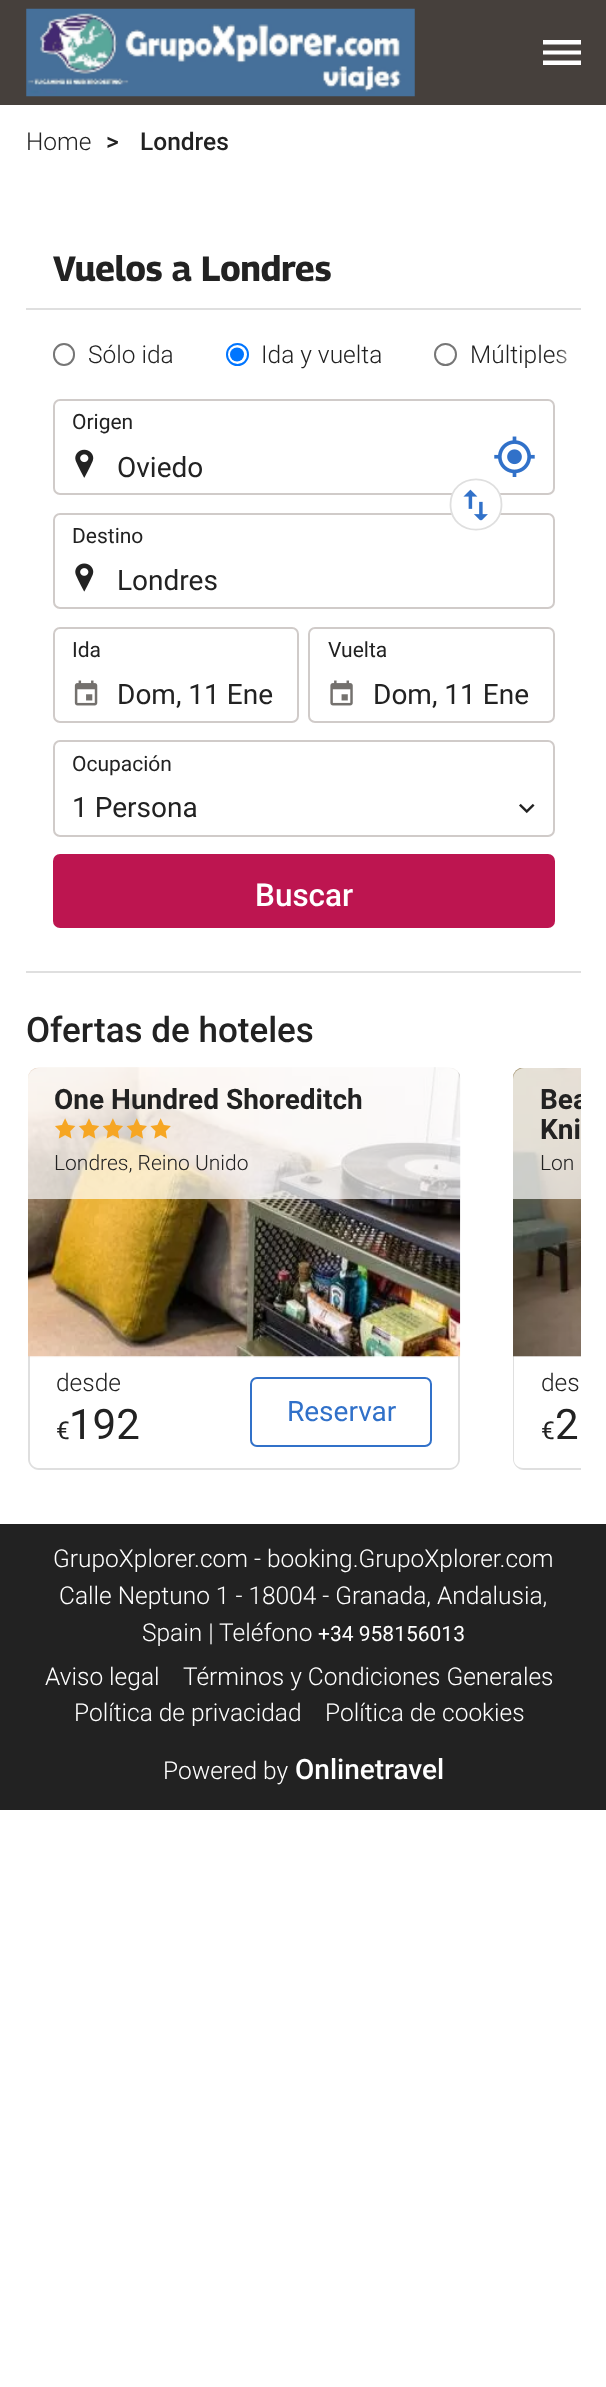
<?xml version="1.0" encoding="UTF-8"?>
<svg xmlns="http://www.w3.org/2000/svg" xmlns:xlink="http://www.w3.org/1999/xlink" width="606" height="2387">
  <defs>
    <clipPath id="clip1"><rect x="26" y="1068" width="555" height="402" /></clipPath>
    <linearGradient id="g1" gradientUnits="userSpaceOnUse" x1="555" y1="354" x2="581" y2="354"><stop offset="0" stop-color="#ffffff" stop-opacity="0" /><stop offset="1" stop-color="#ffffff" /></linearGradient>
  </defs>
  <rect width="100%" height="100%" fill="#ffffff" />
  <rect width="606" height="105" fill="#46403c" />
  <image x="26" y="8" width="389" height="89" xlink:href="image1.png" />
  <path d="M 543 44.5 v -4.5 h 38 v 4.5 z m 0 10 v -4 h 38 v 4 z m 0 10.5 h 38 v -4.5 h -38 z" fill="#ffffff" fill-rule="evenodd" />
  <rect x="26" y="308" width="555" height="2" fill="#dfdfdf" />
  <rect x="26" y="971" width="555" height="2" fill="#dfdfdf" />
  <rect x="54" y="344" width="20" height="21" rx="10" fill="none" stroke="#767676" stroke-width="2" />
  <circle cx="237.5" cy="354.5" r="10.5" fill="none" stroke="#0075ff" stroke-width="2" />
  <circle cx="237" cy="354.5" r="7" fill="#0075ff" />
  <circle cx="445.5" cy="354.5" r="10.5" fill="none" stroke="#767676" stroke-width="2" />
  <image x="75" y="449" width="19" height="29" xlink:href="image2.png" />
  <rect x="54" y="400" width="500" height="94" rx="6" fill="none" stroke="#d0cbc9" stroke-width="2" />
  <image x="494" y="436" width="41" height="41" xlink:href="image3.png" />
  <image x="75" y="563" width="19" height="29" xlink:href="image5.png" />
  <rect x="54" y="514" width="500" height="94" rx="6" fill="none" stroke="#d0cbc9" stroke-width="2" />
  <path d="M 502 505 c 0 14 -12 26 -26 26 c -14 0 -26 -12 -26 -26 c 0 -15 12 -27 26 -27 c 14 0 26 12 26 27 z" fill="#ffffff" />
  <path d="M 501.5 504.5 c 0 33.5 -51 33.5 -51 0 c 0 -33.5 51 -33.5 51 0 z" fill="none" stroke="#dfdfdf" stroke-width="1.8" />
  <image x="463" y="489" width="25" height="32" xlink:href="image4.png" />
  <image x="74" y="680" width="24" height="26" xlink:href="image6.png" />
  <rect x="54" y="628" width="244" height="94" rx="6" fill="none" stroke="#d0cbc9" stroke-width="2" />
  <image x="330" y="680" width="23" height="26" xlink:href="image7.png" />
  <rect x="309" y="628" width="245" height="94" rx="6" fill="none" stroke="#d0cbc9" stroke-width="2" />
  <rect x="54" y="741" width="500" height="95" rx="6" fill="none" stroke="#d0cbc9" stroke-width="2" />
  <image x="519" y="803" width="16" height="11" xlink:href="image8.png" />
  <rect x="53" y="854" width="502" height="74" rx="7" fill="#bd1550" />
  <path d="M 30 1356 h -2 v 103 c 0 6 5 11 11 11 h 410 c 6 0 11 -5 11 -11 v -103 h -2 v 104 c 0 4 -3 8 -8 8 h -412 c -4 0 -8 -4 -8 -8 z" fill="#dfdfdf" />
  <image x="28" y="1067" width="433" height="291" xlink:href="image9.png" />
  <path d="M 39 1068 h 410 c 6 0 11 5 11 11 v 120 h -432 v -120 c 0 -6 5 -11 11 -11 z" fill="#ffffff" fill-opacity="0.7" />
  <image x="55" y="1118" width="116" height="21" xlink:href="image10.png" />
  <rect x="251" y="1378" width="180" height="68" rx="6" fill="none" stroke="#3171c9" stroke-width="2" />
  <g clip-path="url(#clip1)">
    <path d="M 514 1356 h -1 v 103 c 0 6 5 11 11 11 h 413 c 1 0 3 -1 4 -1 c 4 -2 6 -6 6 -10 v -103 h -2 v 104 c 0 4 -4 8 -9 8 h -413 c -5 0 -9 -4 -9 -8 z" fill="#dfdfdf" />
  </g>
  <image x="513" y="1068" width="68" height="289" xlink:href="image11.png" />
  <path d="M 524 1068 h 57 v 131 h -68 v -120 c 0 -6 5 -11 11 -11 z" fill="#ffffff" fill-opacity="0.7" />
  <rect y="1524" width="606" height="286" fill="#222222" />
  <text x="26" y="150" style="font-family: Roboto; font-size: 24.5px; font-weight: 300; fill: #222222">Home</text>
  <text x="106" y="150" style="font-family: Roboto; font-size: 24.5px; font-weight: 500; fill: #222222">&gt;</text>
  <text x="140" y="150" style="font-family: Roboto; font-size: 24.5px; font-weight: 500; fill: #222222">Londres</text>
  <text x="53" y="281" style="font-family: Georama; font-size: 35px; font-weight: bold; fill: #222222">Vuelos a Londres</text>
  <text x="88" y="363" style="font-family: Roboto; font-size: 24.5px; font-weight: 300; fill: #222222">Sólo ida</text>
  <text x="261" y="363" style="font-family: Roboto; font-size: 24.5px; font-weight: 300; fill: #222222">Ida y vuelta</text>
  <text x="470" y="363" style="font-family: Roboto; font-size: 24.5px; font-weight: 300; fill: #222222">Múltiples</text>
  <rect x="556" y="349" width="10" height="15" fill="url(#g1)" />
  <text x="72" y="429" style="font-family: Roboto; font-size: 21px; fill: #222222">Origen</text>
  <text x="117" y="477" style="font-family: Roboto; font-size: 28px; fill: #222222">Oviedo</text>
  <text x="72" y="543" style="font-family: Roboto; font-size: 21px; fill: #222222">Destino</text>
  <text x="117" y="590" style="font-family: Roboto; font-size: 28px; fill: #222222">Londres</text>
  <text x="72" y="657" style="font-family: Roboto; font-size: 21px; fill: #222222">Ida</text>
  <text x="117" y="704" style="font-family: Roboto; font-size: 28px; fill: #222222">Dom, 11 Ene</text>
  <text x="328" y="657" style="font-family: Roboto; font-size: 21px; fill: #222222">Vuelta</text>
  <text x="373" y="704" style="font-family: Roboto; font-size: 28px; fill: #222222">Dom, 11 Ene</text>
  <text x="72" y="771" style="font-family: Roboto; font-size: 21px; fill: #222222">Ocupación</text>
  <text x="72" y="817" style="font-family: Roboto; font-size: 28px; fill: #222222">1 Persona</text>
  <text x="255" y="906" style="font-family: Roboto; font-size: 31.5px; font-weight: 500; fill: #ffffff">Buscar</text>
  <text x="26" y="1042" style="font-family: Roboto; font-size: 35px; font-weight: 500; fill: #222222">Ofertas de hoteles</text>
  <text x="54" y="1109" style="font-family: Roboto; font-size: 28px; font-weight: bold; fill: #222222">One Hundred Shoreditch</text>
  <text x="54" y="1170" style="font-family: Roboto; font-size: 21px; font-weight: 300; fill: #222222">Londres, Reino Unido</text>
  <text x="56" y="1391" style="font-family: Roboto; font-size: 24.5px; font-weight: 300; fill: #222222">desde</text>
  <text x="56" y="1439" style="font-family: Roboto; font-size: 24.5px; fill: #222222">€</text>
  <text x="69" y="1439" style="font-family: Roboto; font-size: 42px; fill: #222222">192</text>
  <text x="287" y="1421" style="font-family: Roboto; font-size: 28px; fill: #3171c9">Reservar</text>
  <g clip-path="url(#clip1)">
    <text x="540" y="1109" style="font-family: Roboto; font-size: 28px; font-weight: bold; fill: #222222">Bea</text>
  </g>
  <text x="540" y="1139" style="font-family: Roboto; font-size: 28px; font-weight: bold; fill: #222222">Kni</text>
  <text x="540" y="1170" style="font-family: Roboto; font-size: 21px; font-weight: 300; fill: #222222">Lon</text>
  <text x="541" y="1391" style="font-family: Roboto; font-size: 24.5px; font-weight: 300; fill: #222222">des</text>
  <text x="541" y="1439" style="font-family: Roboto; font-size: 24.5px; fill: #222222">€</text>
  <text x="555" y="1439" style="font-family: Roboto; font-size: 42px; fill: #222222">2</text>
  <text x="53" y="1567" style="font-family: Roboto; font-size: 24.5px; font-weight: 300; fill: #ffffff">GrupoXplorer.com - booking.GrupoXplorer.com</text>
  <text x="59" y="1604" style="font-family: Roboto; font-size: 24.5px; font-weight: 300; fill: #ffffff">Calle Neptuno 1 - 18004 - Granada, Andalusia,</text>
  <text x="142" y="1641" style="font-family: Roboto; font-size: 24.5px; font-weight: 300; fill: #ffffff">Spain | Teléfono</text>
  <text x="318" y="1641" style="font-family: Roboto; font-size: 21px; fill: #ffffff">+34 958156013</text>
  <text x="45" y="1685" style="font-family: Roboto; font-size: 24.5px; font-weight: 300; fill: #ffffff">Aviso legal</text>
  <text x="183" y="1685" style="font-family: Roboto; font-size: 24.5px; font-weight: 300; fill: #ffffff">Términos y Condiciones Generales</text>
  <text x="74" y="1721" style="font-family: Roboto; font-size: 24.5px; font-weight: 300; fill: #ffffff">Política de privacidad</text>
  <text x="325" y="1721" style="font-family: Roboto; font-size: 24.5px; font-weight: 300; fill: #ffffff">Política de cookies</text>
  <text x="163" y="1779" style="font-family: Roboto; font-size: 24.5px; font-weight: 300; fill: #ffffff">Powered by</text>
  <text x="295" y="1779" style="font-family: Roboto; font-size: 28px; font-weight: 500; fill: #ffffff">Onlinetravel</text>
</svg>
